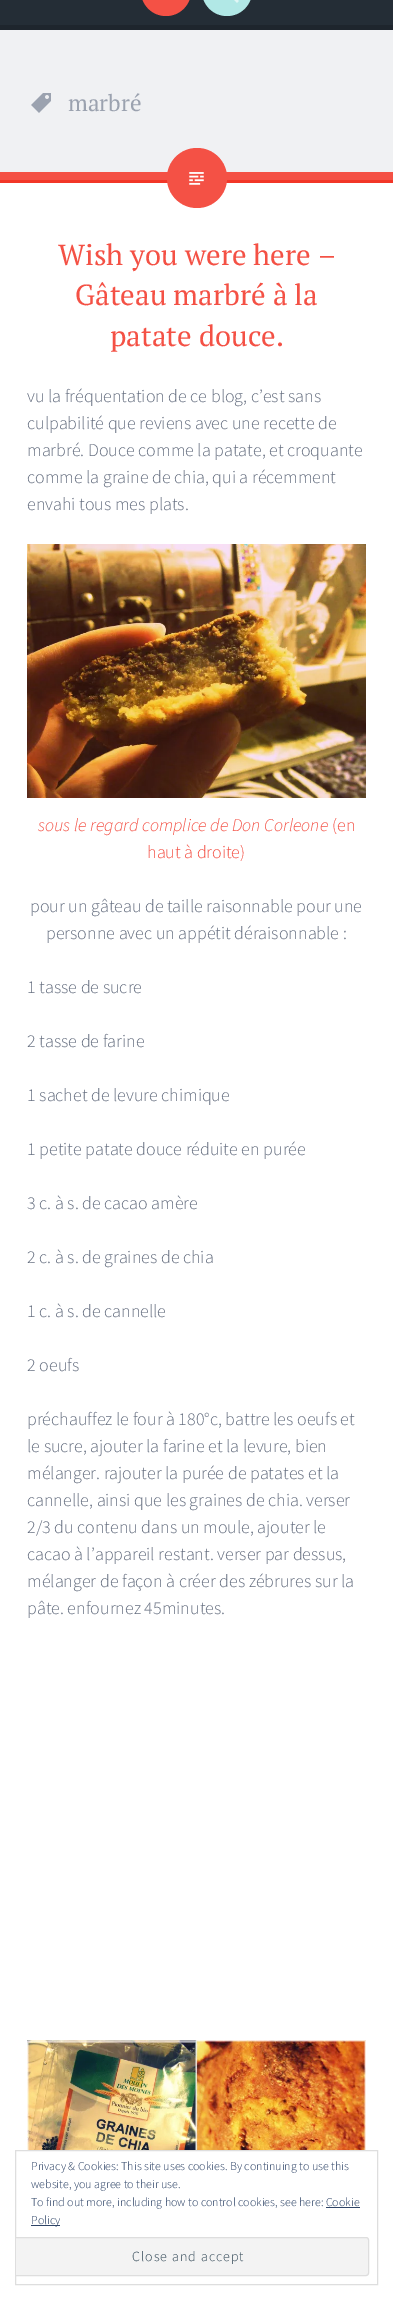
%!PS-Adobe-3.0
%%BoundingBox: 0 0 393 2300
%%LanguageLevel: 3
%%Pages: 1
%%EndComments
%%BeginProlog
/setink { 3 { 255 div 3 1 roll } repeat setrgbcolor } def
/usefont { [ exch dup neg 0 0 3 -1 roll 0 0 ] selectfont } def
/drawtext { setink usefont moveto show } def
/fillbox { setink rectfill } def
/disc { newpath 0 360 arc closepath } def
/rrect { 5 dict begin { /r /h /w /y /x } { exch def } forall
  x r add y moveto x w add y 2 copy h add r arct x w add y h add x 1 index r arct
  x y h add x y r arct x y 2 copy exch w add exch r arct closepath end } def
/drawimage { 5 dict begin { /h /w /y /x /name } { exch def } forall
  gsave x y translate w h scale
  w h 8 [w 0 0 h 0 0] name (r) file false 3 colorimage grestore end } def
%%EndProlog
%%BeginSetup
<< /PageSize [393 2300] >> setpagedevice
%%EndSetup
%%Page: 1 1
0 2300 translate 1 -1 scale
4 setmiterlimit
0 0 393 2300 240 241 243 fillbox
0 0 393 25 36 45 54 fillbox
0 25 393 5 30 37 45 fillbox
244 81 69 setink
141 -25 50 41 25 rrect fill
177 232 230 setink
202 -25 50 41 25 rrect fill
(assets/img1.rgb) 234 0 5 3 drawimage
(assets/img2.rgb) 31 93 20 20 drawimage
(marbré) 68 111 /PTSerif-Regular 23 155 162 175 drawtext
0 183 393 2117 255 255 255 fillbox
0 172 393 8 244 81 69 fillbox
0 180 393 3 242 54 40 fillbox
244 81 69 setink
197 178 30 disc fill
(assets/img3.rgb) 189 172 15 13 drawimage
(Wish you were here –) 58 265 /PTSerif-Regular 29 244 81 69 drawtext
(Gâteau marbré à la) 75 305 /PTSerif-Regular 29 244 81 69 drawtext
(patate douce.) 110 346 /PTSerif-Regular 29 244 81 69 drawtext
(vu la fréquentation de ce blog, c’est sans) 27 402 /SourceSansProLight-Light 18 101 110 127 drawtext
(culpabilité que reviens avec une recette de) 27 429 /SourceSansProLight-Light 18 101 110 127 drawtext
(marbré. Douce comme la patate, et croquante) 27 456 /SourceSansProLight-Light 18 101 110 127 drawtext
(comme la graine de chia, qui a récemment) 27 483 /SourceSansProLight-Light 18 101 110 127 drawtext
(envahi tous mes plats.) 27 510 /SourceSansProLight-Light 18 101 110 127 drawtext
(assets/img4.rgb) 27 544 339 254 drawimage
(sous le regard complice de Don Corleone) 38 831 /SourceSansProLight-LightItalic 18 244 81 69 drawtext
(\(en) 332 831 /SourceSansProLight-Light 18 244 81 69 drawtext
(haut à droite\)) 147 858 /SourceSansProLight-Light 18 244 81 69 drawtext
(pour un gâteau de taille raisonnable pour une) 30 912 /SourceSansProLight-Light 18 101 110 127 drawtext
(personne avec un appétit déraisonnable :) 46 939 /SourceSansProLight-Light 18 101 110 127 drawtext
(1 tasse de sucre) 27 993 /SourceSansProLight-Light 18 101 110 127 drawtext
(2 tasse de farine) 27 1047 /SourceSansProLight-Light 18 101 110 127 drawtext
(1 sachet de levure chimique) 27 1101 /SourceSansProLight-Light 18 101 110 127 drawtext
(1 petite patate douce réduite en purée) 27 1155 /SourceSansProLight-Light 18 101 110 127 drawtext
(3 c. à s. de cacao amère) 27 1209 /SourceSansProLight-Light 18 101 110 127 drawtext
(2 c. à s. de graines de chia) 27 1263 /SourceSansProLight-Light 18 101 110 127 drawtext
(1 c. à s. de cannelle) 27 1317 /SourceSansProLight-Light 18 101 110 127 drawtext
(2 oeufs) 27 1371 /SourceSansProLight-Light 18 101 110 127 drawtext
(préchauffez le four à 180°c, battre les oeufs et) 27 1425 /SourceSansProLight-Light 18 101 110 127 drawtext
(le sucre, ajouter la farine et la levure, bien) 27 1452 /SourceSansProLight-Light 18 101 110 127 drawtext
(mélanger. rajouter la purée de patates et la) 27 1479 /SourceSansProLight-Light 18 101 110 127 drawtext
(cannelle, ainsi que les graines de chia. verser) 27 1506 /SourceSansProLight-Light 18 101 110 127 drawtext
(2/3 du contenu dans un moule, ajouter le) 27 1533 /SourceSansProLight-Light 18 101 110 127 drawtext
(cacao à l’appareil restant. verser par dessus,) 27 1560 /SourceSansProLight-Light 18 101 110 127 drawtext
(mélanger de façon à créer des zébrures sur la) 27 1587 /SourceSansProLight-Light 18 101 110 127 drawtext
(pâte. enfournez 45minutes.) 27 1614 /SourceSansProLight-Light 18 101 110 127 drawtext
(assets/img5.rgb) 27 2040 339 110 drawimage
222 222 222 setink
15.5 2150.5 362 134 rectstroke
(Privacy & Cookies: This site uses cookies. By continuing to use this) 31 2170 /SourceSansProLight-Light 12 46 68 103 drawtext
(website, you agree to their use.) 31 2188 /SourceSansProLight-Light 12 46 68 103 drawtext
(To find out more, including how to control cookies, see here: Cookie) 31 2206 /SourceSansProLight-Light 12 46 68 103 drawtext
31 2225 29 1 46 68 103 fillbox
(Policy) 31 2224 /SourceSansProLight-Light 12 46 68 103 drawtext
326 2207 34 1 46 68 103 fillbox
243 243 243 setink
16 2237 moveto 366 2237 lineto 367.5 2237 369 2238.5 369 2240 curveto 369 2273 lineto 369 2274.5 367.5 2276 366 2276 curveto 16 2276 lineto closepath fill
gsave
16 2151 361 133 rectclip
222 222 222 setink
8.5 2237.5 360 38 2.5 rrect stroke
grestore
/SourceSansProLight-Light 14 usefont
46 68 83 setink
132 2261 moveto 1 0 (Close and accept) ashow
showpage
%%EOF
